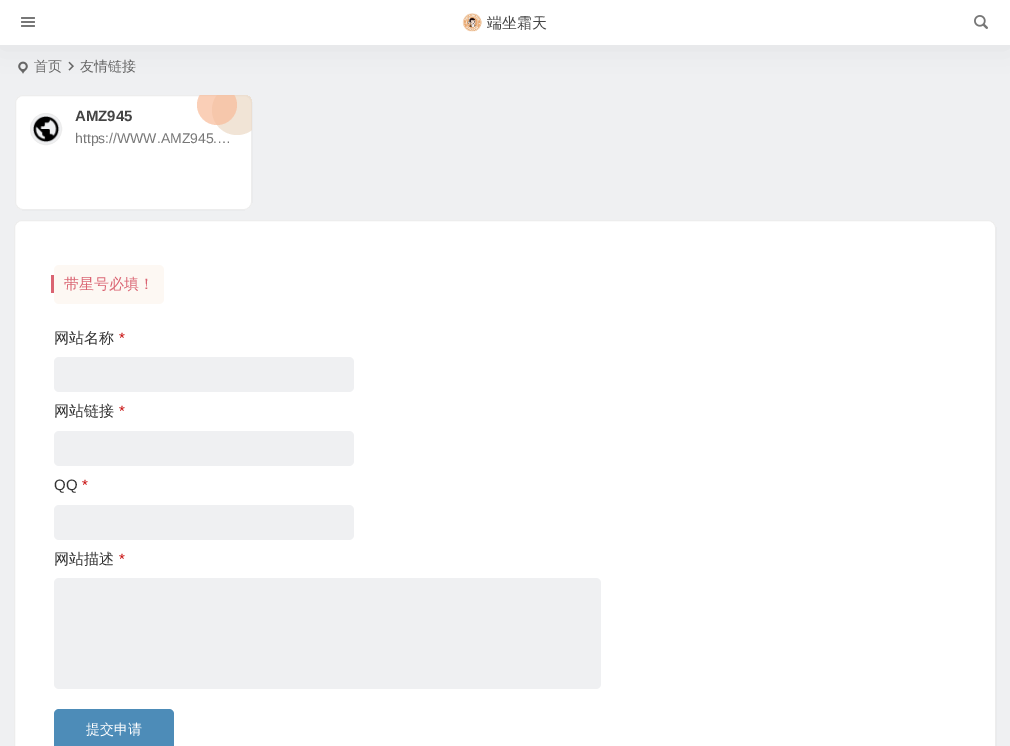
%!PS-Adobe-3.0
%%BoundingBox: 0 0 1010 746
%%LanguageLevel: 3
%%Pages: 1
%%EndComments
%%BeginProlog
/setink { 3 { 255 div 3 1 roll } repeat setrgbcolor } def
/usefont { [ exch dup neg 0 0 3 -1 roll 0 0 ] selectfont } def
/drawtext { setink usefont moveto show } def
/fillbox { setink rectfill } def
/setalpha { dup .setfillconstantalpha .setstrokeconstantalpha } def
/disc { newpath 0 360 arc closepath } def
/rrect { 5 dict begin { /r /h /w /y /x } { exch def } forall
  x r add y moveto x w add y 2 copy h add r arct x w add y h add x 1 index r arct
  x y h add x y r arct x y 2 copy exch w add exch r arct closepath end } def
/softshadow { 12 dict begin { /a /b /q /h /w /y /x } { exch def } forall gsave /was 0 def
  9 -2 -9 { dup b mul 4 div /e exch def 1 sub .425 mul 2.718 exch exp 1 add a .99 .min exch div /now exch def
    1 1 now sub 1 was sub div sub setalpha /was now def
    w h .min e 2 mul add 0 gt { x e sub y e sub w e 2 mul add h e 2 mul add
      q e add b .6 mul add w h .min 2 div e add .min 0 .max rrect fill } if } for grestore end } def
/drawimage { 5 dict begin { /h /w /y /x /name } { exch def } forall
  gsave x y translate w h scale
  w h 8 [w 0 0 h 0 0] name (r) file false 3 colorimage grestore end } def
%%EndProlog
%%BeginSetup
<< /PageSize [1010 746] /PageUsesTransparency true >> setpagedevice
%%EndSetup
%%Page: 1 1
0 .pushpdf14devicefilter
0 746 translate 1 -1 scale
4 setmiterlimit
0 0 1010 746 239 240 242 fillbox
(assets/img3.rgb) 18 61 10 13 drawimage
(assets/img4.rgb) 68 61 6 10 drawimage
255 255 255 setink
15 95 237 115 8 rrect fill
0.07 setalpha
0 0 0 setink
15.5 95.5 236 114 7.5 rrect stroke
1 setalpha
(https://WWW.AMZ945.…) 75 143 /LiberationSans-Regular 14 119 119 119 drawtext
gsave
15 95 237 115 8 rrect clip newpath
0.7 setalpha
235 216 196 setink
237 110 25 disc fill
248 187 153 setink
217 105 20 disc fill
grestore
0 0 0 setink
0 3 1010 45 0 15 0.06 softshadow
0 0 1010 45 255 255 255 fillbox
119 119 119 setink
21 21 14 2 1 rrect fill
21 17 14 2 1 rrect fill
21 25 14 2 1 rrect fill
(assets/img1.rgb) 462 13 20 19 drawimage
(端坐霜天) 487 28 /WenQuanYiZenHei-Medium 15 68 68 68 drawtext
(assets/img2.rgb) 974 15 14 14 drawimage
(首页) 34 71 /WenQuanYiZenHei-Medium 14 102 102 102 drawtext
(友情链接) 80 71 /WenQuanYiZenHei-Medium 14 102 102 102 drawtext
239 240 242 setink
46 129 15.5 disc gsave fill grestore
236 236 236 setink
stroke
(assets/img5.rgb) 33 116 27 27 drawimage
(AMZ945) 75 121 /LiberationSans-Bold 15 68 68 68 drawtext
255 255 255 setink
14 220 982 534 8 rrect fill
0.07 setalpha
0 0 0 setink
14.5 220.5 981 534 7.5 rrect stroke
1 setalpha
253 248 243 setink
54 265 110 39 5 rrect fill
51 275 3 18 218 100 114 fillbox
(带星号必填！) 64 289 /WenQuanYiZenHei-Medium 15 218 100 114 drawtext
(网站名称) 54 343 /WenQuanYiZenHei-Medium 15 51 51 51 drawtext
(*) 119 343 /LiberationSans-Regular 15 196 0 0 drawtext
239 240 242 setink
54 357 300 35 5 rrect fill
(网站链接) 54 416 /WenQuanYiZenHei-Medium 15 51 51 51 drawtext
(*) 119 416 /LiberationSans-Regular 15 196 0 0 drawtext
239 240 242 setink
54 431 300 35 5 rrect fill
(QQ) 54 490 /LiberationSans-Regular 15 51 51 51 drawtext
(*) 82 490 /LiberationSans-Regular 15 196 0 0 drawtext
239 240 242 setink
54 505 300 35 5 rrect fill
(网站描述) 54 564 /WenQuanYiZenHei-Medium 15 51 51 51 drawtext
(*) 119 564 /LiberationSans-Regular 15 196 0 0 drawtext
239 240 242 setink
54 578 547 111 5 rrect fill
77 140 184 setink
54 709 120 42 5 rrect fill
(提交申请) 86 734 /WenQuanYiZenHei-Medium 14 255 255 255 drawtext
.poppdf14devicefilter showpage
%%EOF
